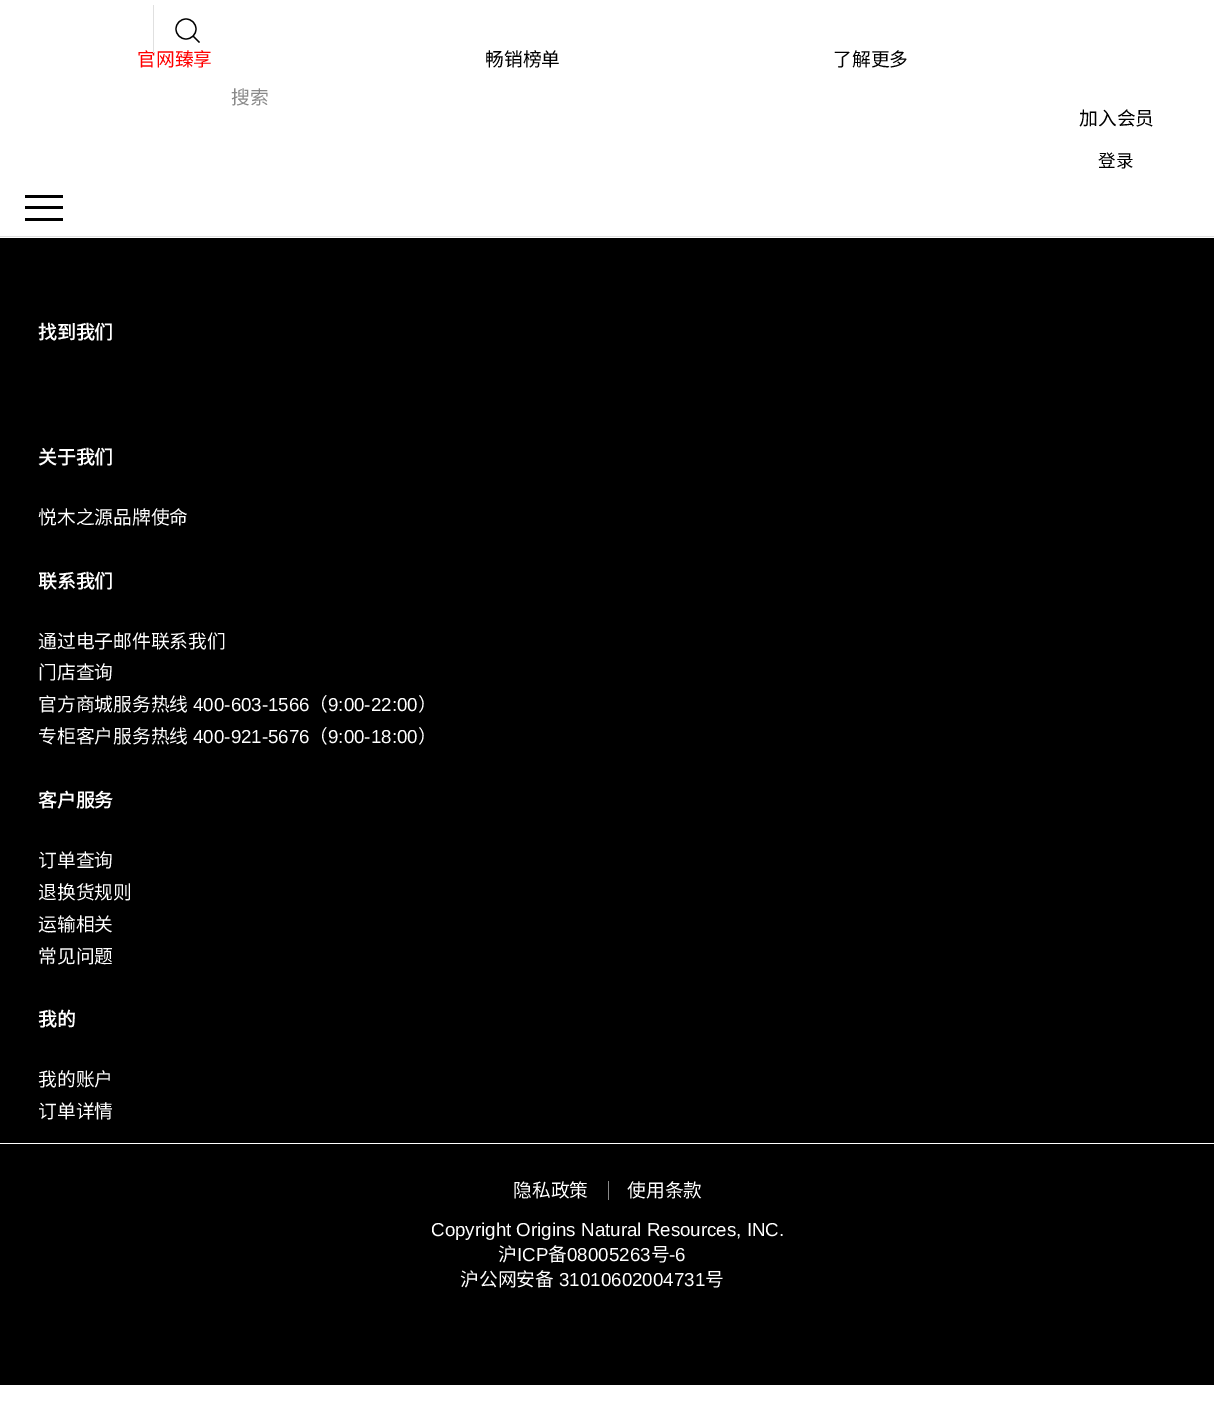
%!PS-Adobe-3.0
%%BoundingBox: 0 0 1214 1406
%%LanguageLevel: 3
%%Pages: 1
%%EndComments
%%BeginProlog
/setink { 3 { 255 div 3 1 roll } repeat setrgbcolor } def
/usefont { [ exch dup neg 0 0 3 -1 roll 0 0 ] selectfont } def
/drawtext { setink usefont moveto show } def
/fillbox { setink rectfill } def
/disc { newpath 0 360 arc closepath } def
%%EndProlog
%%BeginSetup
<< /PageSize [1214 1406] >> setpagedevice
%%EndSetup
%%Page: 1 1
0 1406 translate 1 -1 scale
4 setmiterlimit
0 0 1214 1406 255 255 255 fillbox
0 236 1214 1 224 224 224 fillbox
(官网臻享) 137 66 /NotoSansCJKSC-Regular 18.75 255 0 0 drawtext
(畅销榜单) 485 66 /NotoSansCJKSC-Regular 18.75 0 0 0 drawtext
(了解更多) 833 66 /NotoSansCJKSC-Regular 18.75 0 0 0 drawtext
(加入会员) 1079 125 /NotoSansCJKSC-Regular 18.75 0 0 0 drawtext
(登录) 1098 167 /NotoSansCJKSC-Regular 17.5 0 0 0 drawtext
153 5 1 48 224 224 224 fillbox
0 0 0 setink
1.2 setlinewidth
186 29 10 disc stroke
193 36 moveto 199.5 42.5 lineto stroke
(搜索) 231 104 /NotoSansCJKSC-Regular 18.75 137 137 137 drawtext
25 195 38 3 0 0 0 fillbox
25 206 38 3 0 0 0 fillbox
25 218 38 3 0 0 0 fillbox
0 238 1214 905 0 0 0 fillbox
(找到我们) 38 339 /NotoSansCJKSC-Bold 18.75 255 255 255 drawtext
(关于我们) 38 464 /NotoSansCJKSC-Bold 18.75 255 255 255 drawtext
(悦木之源品牌使命) 38 524 /NotoSansCJKSC-Regular 18.75 255 255 255 drawtext
(联系我们) 38 588 /NotoSansCJKSC-Bold 18.75 255 255 255 drawtext
(通过电子邮件联系我们) 38 648 /NotoSansCJKSC-Regular 18.75 255 255 255 drawtext
(门店查询) 38 679 /NotoSansCJKSC-Regular 18.75 255 255 255 drawtext
(官方商城服务热线) 38 711 /NotoSansCJKSC-Regular 18.75 255 255 255 drawtext
(400-603-1566) 193 711 /LiberationSans-Regular 18.75 255 255 255 drawtext
(（) 309 711 /NotoSansCJKSC-Regular 18.75 255 255 255 drawtext
(9:00-22:00) 328 711 /LiberationSans-Regular 18.75 255 255 255 drawtext
(）) 418 711 /NotoSansCJKSC-Regular 18.75 255 255 255 drawtext
(专柜客户服务热线) 38 743 /NotoSansCJKSC-Regular 18.75 255 255 255 drawtext
(400-921-5676) 193 743 /LiberationSans-Regular 18.75 255 255 255 drawtext
(（) 309 743 /NotoSansCJKSC-Regular 18.75 255 255 255 drawtext
(9:00-18:00) 328 743 /LiberationSans-Regular 18.75 255 255 255 drawtext
(）) 418 743 /NotoSansCJKSC-Regular 18.75 255 255 255 drawtext
(客户服务) 38 807 /NotoSansCJKSC-Bold 18.75 255 255 255 drawtext
(订单查询) 38 867 /NotoSansCJKSC-Regular 18.75 255 255 255 drawtext
(退换货规则) 38 899 /NotoSansCJKSC-Regular 18.75 255 255 255 drawtext
(运输相关) 38 931 /NotoSansCJKSC-Regular 18.75 255 255 255 drawtext
(常见问题) 38 963 /NotoSansCJKSC-Regular 18.75 255 255 255 drawtext
(我的) 38 1026 /NotoSansCJKSC-Bold 18.75 255 255 255 drawtext
(我的账户) 38 1086 /NotoSansCJKSC-Regular 18.75 255 255 255 drawtext
(订单详情) 38 1118 /NotoSansCJKSC-Regular 18.75 255 255 255 drawtext
0 1144 1214 241 0 0 0 fillbox
608 1181 1 19 137 137 137 fillbox
(隐私政策) 513 1197 /NotoSansCJKSC-Regular 18.75 255 255 255 drawtext
(使用条款) 627 1197 /NotoSansCJKSC-Regular 18.75 255 255 255 drawtext
(Copyright Origins Natural Resources, INC.) 431 1236 /LiberationSans-Regular 18.75 255 255 255 drawtext
(沪) 498 1261 /NotoSansCJKSC-Regular 18.75 255 255 255 drawtext
(ICP) 517 1261 /LiberationSans-Regular 18.75 255 255 255 drawtext
(备) 548 1261 /NotoSansCJKSC-Regular 18.75 255 255 255 drawtext
(08005263) 567 1261 /LiberationSans-Regular 18.75 255 255 255 drawtext
(号) 651 1261 /NotoSansCJKSC-Regular 18.75 255 255 255 drawtext
(-6) 669 1261 /LiberationSans-Regular 18.75 255 255 255 drawtext
(沪公网安备) 460 1286 /NotoSansCJKSC-Regular 18.75 255 255 255 drawtext
(31010602004731) 559 1286 /LiberationSans-Regular 18.75 255 255 255 drawtext
(号) 705 1286 /NotoSansCJKSC-Regular 18.75 255 255 255 drawtext
showpage
%%EOF
